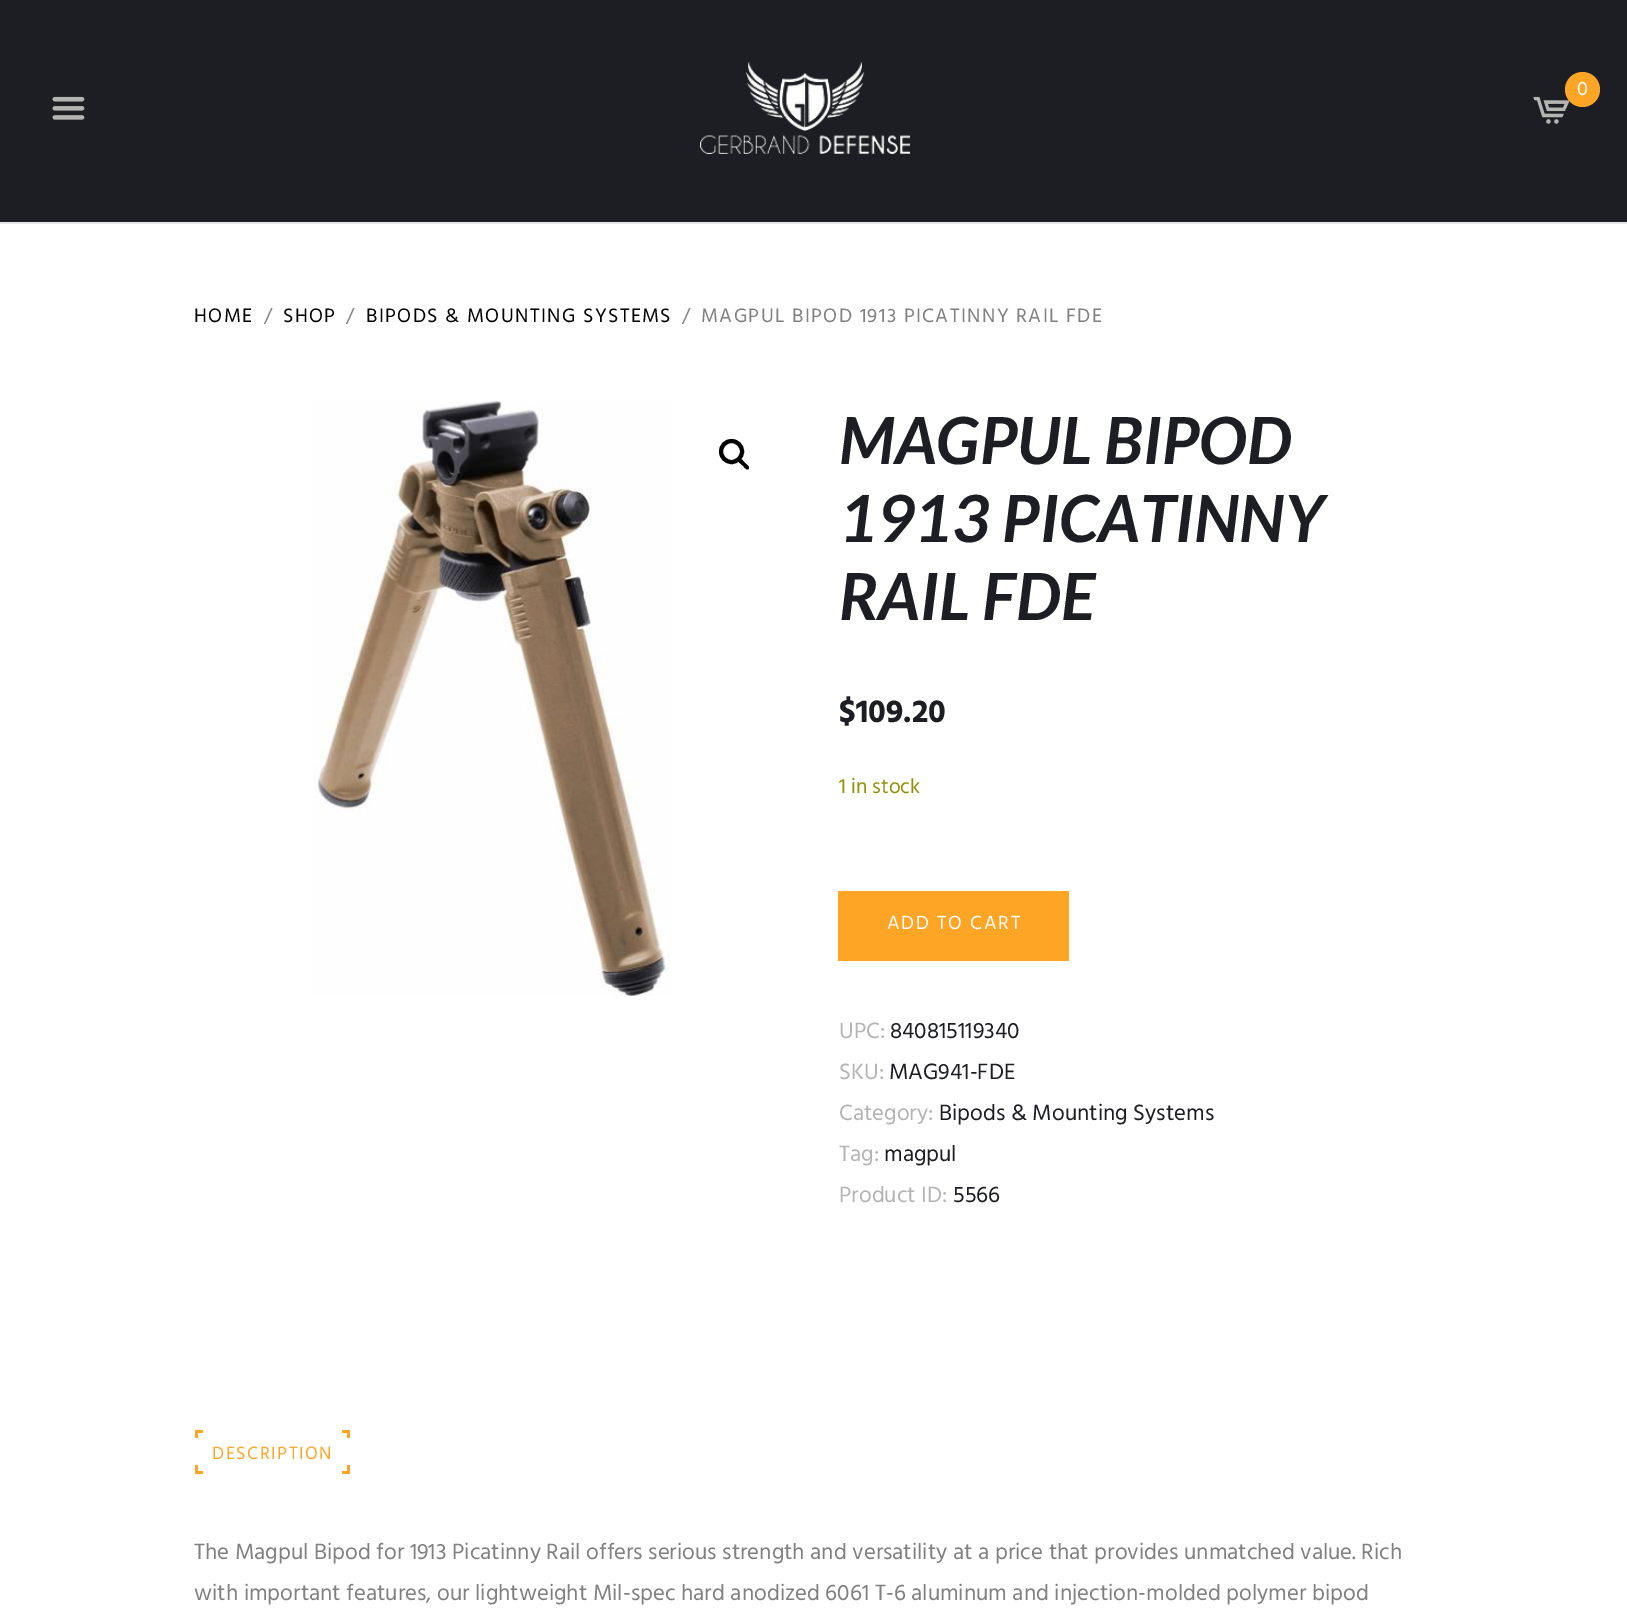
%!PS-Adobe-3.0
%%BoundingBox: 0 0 1627 1615
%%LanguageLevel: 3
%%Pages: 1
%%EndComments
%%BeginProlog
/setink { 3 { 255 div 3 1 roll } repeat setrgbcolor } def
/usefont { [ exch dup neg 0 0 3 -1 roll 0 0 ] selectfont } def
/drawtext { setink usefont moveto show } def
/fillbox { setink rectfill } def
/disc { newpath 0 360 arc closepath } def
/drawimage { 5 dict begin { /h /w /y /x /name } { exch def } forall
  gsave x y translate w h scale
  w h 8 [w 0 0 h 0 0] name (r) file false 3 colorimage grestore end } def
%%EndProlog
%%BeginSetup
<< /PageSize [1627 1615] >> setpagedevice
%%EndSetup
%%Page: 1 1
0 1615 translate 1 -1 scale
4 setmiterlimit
0 0 1627 1615 255 255 255 fillbox
0 0 1627 222 29 30 35 fillbox
(assets/img1.rgb) 700 61 210 93 drawimage
(assets/img2.rgb) 1533 96 37 28 drawimage
254 165 38 setink
1582.5 89.5 17.5 disc fill
(0) 1577 95 /Hind-Regular 20 255 255 255 drawtext
(assets/img3.rgb) 52 96 33 24 drawimage
0 222 1627 2 231 231 232 fillbox
/Hind-Regular 19.9 usefont
0 0 0 setink
194 322 moveto 1.4 0 (HOME) ashow
128 128 128 setink
264 322 moveto 1.4 0 (/) ashow
0 0 0 setink
283 322 moveto 1.4 0 (SHOP) ashow
128 128 128 setink
346 322 moveto 1.4 0 (/) ashow
0 0 0 setink
366 322 moveto 1.4 0 (BIPODS & MOUNTING SYSTEMS) ashow
128 128 128 setink
682 322 moveto 1.4 0 (/) ashow
701 322 moveto 1.4 0 (MAGPUL BIPOD 1913 PICATINNY RAIL FDE) ashow
(assets/img4.rgb) 313 400 357 596 drawimage
0 0 0 setink
4 setlinewidth
731.5 451.5 10.5 disc stroke
738.5 459 moveto 740.5 457 743.5 461.5 744.5 462.5 curveto 746 464 750.5 467 748.5 469 curveto 746.5 471 743.5 466 742 465 curveto 741 464 736.5 461 738.5 459 curveto closepath fill
(MAGPUL BIPOD) 839 464 /Lato-BoldItalic 65 29 30 35 drawtext
(1913 PICATINNY) 839 542 /Lato-BoldItalic 65 29 30 35 drawtext
(RAIL FDE) 839 620 /Lato-BoldItalic 65 29 30 35 drawtext
($109.20) 839 722 /Hind-Bold 32.5 29 30 35 drawtext
(1 in stock) 839 793 /Hind-Regular 21 149 142 9 drawtext
838 891 231 70 254 165 38 fillbox
/Hind-Regular 19.5 usefont
255 255 255 setink
887 929 moveto 1.75 0 (ADD TO CART) ashow
(UPC:) 839 1038 /Hind-Regular 22.75 180 180 180 drawtext
(840815119340) 890 1038 /Hind-Regular 22.75 29 30 35 drawtext
(SKU:) 839 1079 /Hind-Regular 22.75 180 180 180 drawtext
(MAG941-FDE) 889 1079 /Hind-Regular 22.75 29 30 35 drawtext
(Category:) 839 1120 /Hind-Regular 22.75 180 180 180 drawtext
(Bipods & Mounting Systems) 939 1120 /Hind-Regular 22.75 29 30 35 drawtext
(Tag:) 839 1161 /Hind-Regular 22.75 180 180 180 drawtext
(magpul) 884 1161 /Hind-Regular 22.75 29 30 35 drawtext
(Product ID:) 839 1202 /Hind-Regular 22.75 180 180 180 drawtext
(5566) 953 1202 /Hind-Regular 22.75 29 30 35 drawtext
254 165 38 setink
195 1434 moveto 195 1438 lineto 198 1438 lineto 198 1433 lineto 203 1433 lineto 203 1430 lineto 195 1430 lineto closepath 195 1470 moveto 195 1474 lineto 203 1474 lineto 203 1471 lineto 198 1471 lineto 198 1465 lineto 195 1465 lineto closepath fill
/Hind-Regular 18.25 usefont
212 1459 moveto 1.5 0 (DESCRIPTION) ashow
342 1431 moveto 342 1433 lineto 347 1433 lineto 347 1438 lineto 350 1438 lineto 350 1430 lineto 342 1430 lineto closepath 347 1468 moveto 347 1471 lineto 342 1471 lineto 342 1474 lineto 350 1474 lineto 350 1465 lineto 347 1465 lineto closepath fill
(The Magpul Bipod for 1913 Picatinny Rail offers serious strength and versatility at a price that provides unmatched value. Rich) 194 1559 /Hind-Regular 22.75 128 128 128 drawtext
(with important features, our lightweight Mil-spec hard anodized 6061 T-6 aluminum and injection-molded polymer bipod) 194 1600 /Hind-Regular 22.75 128 128 128 drawtext
showpage
%%EOF
